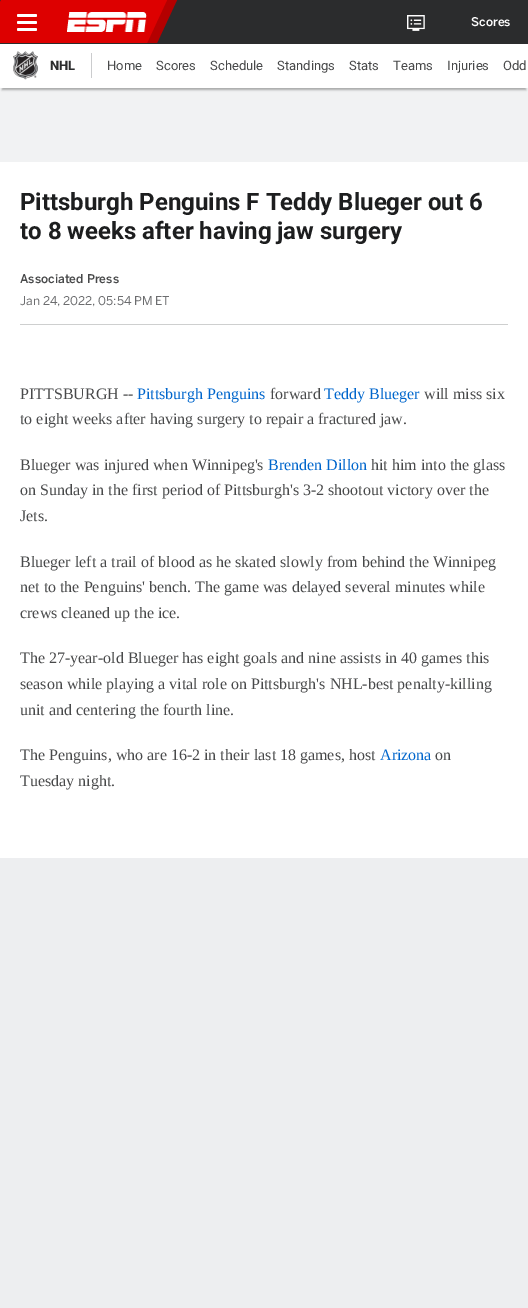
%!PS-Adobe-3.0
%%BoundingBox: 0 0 528 1308
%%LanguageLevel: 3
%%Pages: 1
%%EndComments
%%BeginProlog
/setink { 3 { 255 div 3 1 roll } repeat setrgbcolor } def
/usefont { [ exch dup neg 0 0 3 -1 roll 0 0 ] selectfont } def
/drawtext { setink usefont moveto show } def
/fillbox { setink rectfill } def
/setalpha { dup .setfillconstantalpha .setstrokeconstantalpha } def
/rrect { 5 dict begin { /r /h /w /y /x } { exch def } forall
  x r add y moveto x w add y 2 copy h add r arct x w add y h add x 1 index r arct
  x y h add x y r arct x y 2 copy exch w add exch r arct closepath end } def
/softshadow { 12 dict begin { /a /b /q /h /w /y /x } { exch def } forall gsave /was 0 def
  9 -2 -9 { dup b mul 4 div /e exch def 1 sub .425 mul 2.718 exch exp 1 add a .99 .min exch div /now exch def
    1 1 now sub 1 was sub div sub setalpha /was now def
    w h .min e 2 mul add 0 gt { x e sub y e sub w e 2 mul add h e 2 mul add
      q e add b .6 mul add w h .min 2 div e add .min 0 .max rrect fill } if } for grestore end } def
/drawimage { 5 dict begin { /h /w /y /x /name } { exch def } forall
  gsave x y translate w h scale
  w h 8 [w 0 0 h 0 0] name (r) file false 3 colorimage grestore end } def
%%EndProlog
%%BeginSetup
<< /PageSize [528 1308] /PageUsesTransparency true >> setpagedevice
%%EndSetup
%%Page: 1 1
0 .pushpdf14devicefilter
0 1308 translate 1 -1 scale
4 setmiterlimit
0 0 528 1308 237 238 240 fillbox
0 0 528 44 43 44 45 fillbox
180 0 0 setink
54 0 moveto 177 0 lineto 157 43 lineto 34 43 lineto closepath fill
221 0 0 setink
1 0 moveto 167 0 lineto 147 43 lineto -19 43 lineto closepath fill
(assets/img1.rgb) 67 12 80 20 drawimage
255 255 255 setink
17 21 20 3 1.5 rrect fill
17 14 20 3 1.5 rrect fill
17 28 20 3 1.5 rrect fill
(assets/img2.rgb) 407 15 18 16 drawimage
(Scores) 471 26 /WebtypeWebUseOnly-Medium 12 255 255 255 drawtext
0 88 528 74 241 242 243 fillbox
0 0 0 setink
2 50 524 40 0 1 0.3 softshadow
255 255 255 setink
0 44 528 44 1 rrect fill
(assets/img3.rgb) 13 51 25 29 drawimage
(NHL) 50 70 /Roboto-ExtraBold 13 43 44 45 drawtext
91 53 1 25 203 204 206 fillbox
(Home) 107 70 /Roboto-Regular 13 72 73 74 drawtext
(Scores) 156 70 /Roboto-Regular 13 72 73 74 drawtext
(Schedule) 210 70 /Roboto-Regular 13 72 73 74 drawtext
(Standings) 277 70 /Roboto-Regular 13 72 73 74 drawtext
(Stats) 349 70 /Roboto-Regular 13 72 73 74 drawtext
(Teams) 393 70 /Roboto-Regular 13 72 73 74 drawtext
(Injuries) 447 70 /Roboto-Regular 13 72 73 74 drawtext
(Odd) 503 70 /Roboto-Regular 13 72 73 74 drawtext
0 162 528 696 255 255 255 fillbox
(Pittsburgh Penguins F Teddy Blueger out 6) 20 210 /Roboto-Bold 24 29 30 31 drawtext
(to 8 weeks after having jaw surgery) 20 239 /Roboto-Bold 24 29 30 31 drawtext
20 324 488 1 206 207 207 fillbox
(Associated Press) 20 283 /WebtypeWebUseOnly-Medium 12 72 73 74 drawtext
(Jan 24, 2022, 05:54 PM ET) 20 305 /WebtypeWebUseOnly-Regular 12 108 109 111 drawtext
(PITTSBURGH --) 20 399 /LiberationSerif-Regular 16 72 73 74 drawtext
(Pittsburgh Penguins) 137 399 /LiberationSerif-Regular 16 0 102 204 drawtext
(forward) 270 399 /LiberationSerif-Regular 16 72 73 74 drawtext
(Teddy Blueger) 324 399 /LiberationSerif-Regular 16 0 102 204 drawtext
(will miss six) 424 399 /LiberationSerif-Regular 16 72 73 74 drawtext
(to eight weeks after having surgery to repair a fractured jaw.) 20 424 /LiberationSerif-Regular 16 72 73 74 drawtext
(Blueger was injured when Winnipeg's) 20 470 /LiberationSerif-Regular 16 72 73 74 drawtext
(Brenden Dillon) 268 470 /LiberationSerif-Regular 16 0 102 204 drawtext
(hit him into the glass) 371 470 /LiberationSerif-Regular 16 72 73 74 drawtext
(on Sunday in the first period of Pittsburgh's 3-2 shootout victory over the) 20 495 /LiberationSerif-Regular 16 72 73 74 drawtext
(Jets.) 20 521 /LiberationSerif-Regular 16 72 73 74 drawtext
(Blueger left a trail of blood as he skated slowly from behind the Winnipeg) 20 567 /LiberationSerif-Regular 16 72 73 74 drawtext
(net to the Penguins' bench. The game was delayed several minutes while) 20 592 /LiberationSerif-Regular 16 72 73 74 drawtext
(crews cleaned up the ice.) 20 618 /LiberationSerif-Regular 16 72 73 74 drawtext
(The 27-year-old Blueger has eight goals and nine assists in 40 games this) 20 663 /LiberationSerif-Regular 16 72 73 74 drawtext
(season while playing a vital role on Pittsburgh's NHL-best penalty-killing) 20 689 /LiberationSerif-Regular 16 72 73 74 drawtext
(unit and centering the fourth line.) 20 715 /LiberationSerif-Regular 16 72 73 74 drawtext
(The Penguins, who are 16-2 in their last 18 games, host) 20 760 /LiberationSerif-Regular 16 72 73 74 drawtext
(Arizona) 380 760 /LiberationSerif-Regular 16 0 102 204 drawtext
(on) 435 760 /LiberationSerif-Regular 16 72 73 74 drawtext
(Tuesday night.) 20 786 /LiberationSerif-Regular 16 72 73 74 drawtext
.poppdf14devicefilter showpage
%%EOF
